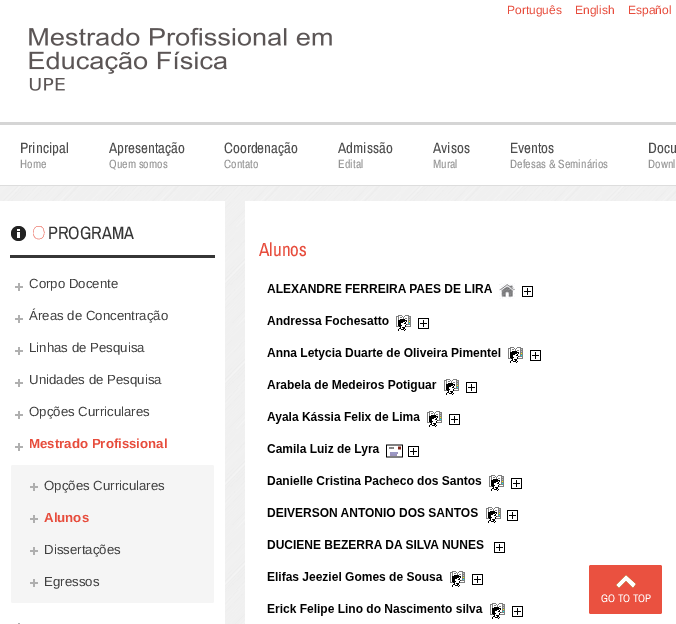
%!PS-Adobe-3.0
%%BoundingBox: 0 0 676 624
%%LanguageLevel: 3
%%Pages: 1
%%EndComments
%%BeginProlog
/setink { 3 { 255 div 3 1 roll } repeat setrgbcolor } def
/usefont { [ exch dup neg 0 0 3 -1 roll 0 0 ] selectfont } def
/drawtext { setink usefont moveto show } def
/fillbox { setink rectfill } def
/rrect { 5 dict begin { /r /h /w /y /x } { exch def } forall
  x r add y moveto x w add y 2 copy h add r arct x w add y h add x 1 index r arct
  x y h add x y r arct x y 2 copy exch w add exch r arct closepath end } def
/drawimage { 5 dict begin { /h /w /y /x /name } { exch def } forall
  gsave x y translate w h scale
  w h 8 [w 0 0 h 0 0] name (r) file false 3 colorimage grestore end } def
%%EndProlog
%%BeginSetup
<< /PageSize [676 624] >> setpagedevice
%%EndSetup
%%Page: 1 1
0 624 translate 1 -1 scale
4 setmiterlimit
0 0 676 624 255 255 255 fillbox
(Português) 507 14 /LiberationSans-Regular 12 231 76 60 drawtext
(English) 575 14 /LiberationSans-Regular 12 231 76 60 drawtext
(Español) 628 14 /LiberationSans-Regular 12 231 76 60 drawtext
(assets/img1.rgb) 29 27 303 64 drawimage
0 122 676 3 213 213 213 fillbox
0 185 676 1 221 221 221 fillbox
(Principal) 20 153 /ArchivoNarrow-Regular 15 77 77 77 drawtext
(Home) 20 168 /ArchivoNarrow-Regular 12 148 148 148 drawtext
(Apresentação) 109 153 /ArchivoNarrow-Regular 15 77 77 77 drawtext
(Quem somos) 109 168 /ArchivoNarrow-Regular 12 148 148 148 drawtext
(Coordenação) 224 153 /ArchivoNarrow-Regular 15 77 77 77 drawtext
(Contato) 224 168 /ArchivoNarrow-Regular 12 148 148 148 drawtext
(Admissão) 338 153 /ArchivoNarrow-Regular 15 77 77 77 drawtext
(Edital) 338 168 /ArchivoNarrow-Regular 12 148 148 148 drawtext
(Avisos) 433 153 /ArchivoNarrow-Regular 15 77 77 77 drawtext
(Mural) 433 168 /ArchivoNarrow-Regular 12 148 148 148 drawtext
(Eventos) 510 153 /ArchivoNarrow-Regular 15 77 77 77 drawtext
(Defesas & Seminários) 510 168 /ArchivoNarrow-Regular 12 148 148 148 drawtext
(Docu) 648 153 /ArchivoNarrow-Regular 15 77 77 77 drawtext
(Downl) 648 168 /ArchivoNarrow-Regular 12 148 148 148 drawtext
(assets/img2.rgb) 0 186 676 438 drawimage
0 201 225 423 255 255 255 fillbox
10 255 205 3 54 54 54 fillbox
(assets/img3.rgb) 11 226 15 15 drawimage
(O) 32 239 /NotoSans-Thin 18 231 76 60 drawtext
(PROGRAMA) 48 239 /ArchivoNarrow-Regular 18 54 54 54 drawtext
(assets/img4.rgb) 15 283 8 8 drawimage
(Corpo Docente) 29 288 /LiberationSans-Regular 13.25 64 64 64 drawtext
(assets/img4.rgb) 15 315 8 8 drawimage
(Áreas de Concentração) 29 320 /LiberationSans-Regular 13.25 64 64 64 drawtext
(assets/img4.rgb) 15 347 8 8 drawimage
(Linhas de Pesquisa) 29 352 /LiberationSans-Regular 13.25 64 64 64 drawtext
(assets/img4.rgb) 15 379 8 8 drawimage
(Unidades de Pesquisa) 29 384 /LiberationSans-Regular 13.25 64 64 64 drawtext
(assets/img4.rgb) 15 411 8 8 drawimage
(Opções Curriculares) 29 416 /LiberationSans-Regular 13.25 64 64 64 drawtext
(assets/img4.rgb) 15 443 8 8 drawimage
(Mestrado Profissional) 29 448 /LiberationSans-Bold 13.25 231 76 60 drawtext
245 245 245 setink
11 465 203 138 2 rrect fill
(assets/img5.rgb) 30 483 8 8 drawimage
(Opções Curriculares) 44 490 /LiberationSans-Regular 13.25 64 64 64 drawtext
(assets/img5.rgb) 30 515 8 8 drawimage
(Alunos) 44 522 /LiberationSans-Bold 13.25 231 76 60 drawtext
(assets/img5.rgb) 30 547 8 8 drawimage
(Dissertações) 44 554 /LiberationSans-Regular 13.25 64 64 64 drawtext
(assets/img5.rgb) 30 579 8 8 drawimage
(Egressos) 44 586 /LiberationSans-Regular 13.25 64 64 64 drawtext
18 623 2 1 176 176 176 fillbox
245 201 431 423 255 255 255 fillbox
(Alunos) 259 256 /ArchivoNarrow-Regular 19 231 76 60 drawtext
(assets/img6.rgb) 267 283 274 336 drawimage
234 81 64 setink
589 565 73 49 2 rrect fill
(assets/img7.rgb) 616 575 20 13 drawimage
(GO TO TOP) 601 602 /ArchivoNarrow-Regular 11 255 255 255 drawtext
showpage
%%EOF
